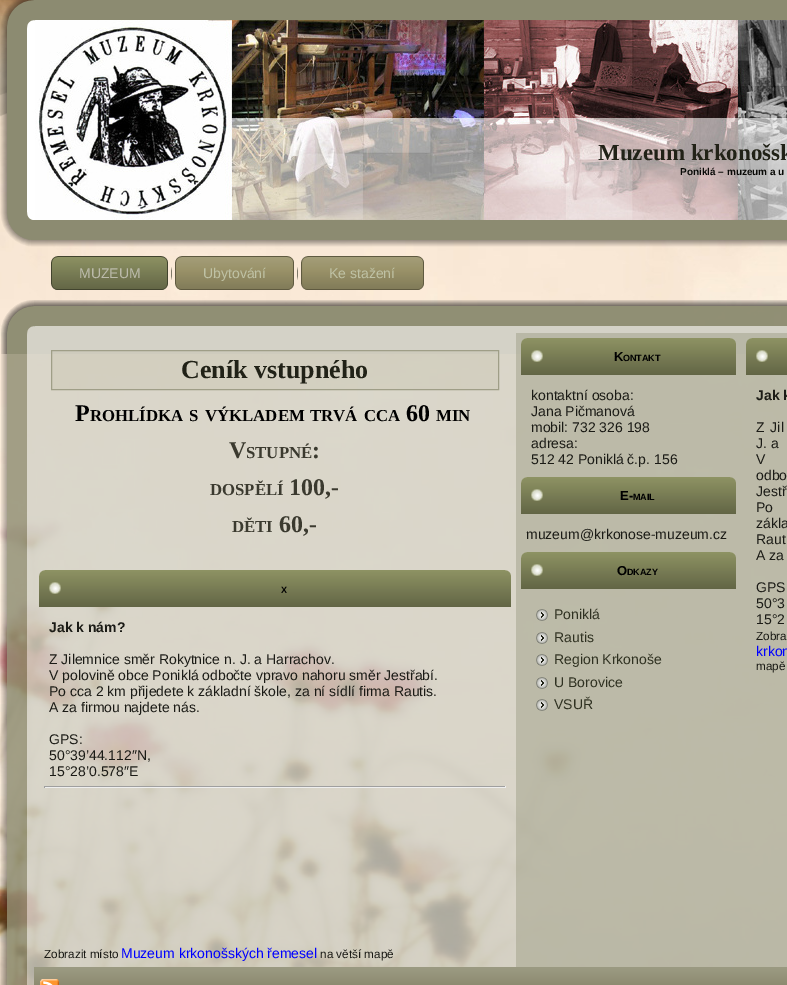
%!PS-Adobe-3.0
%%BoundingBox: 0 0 787 985
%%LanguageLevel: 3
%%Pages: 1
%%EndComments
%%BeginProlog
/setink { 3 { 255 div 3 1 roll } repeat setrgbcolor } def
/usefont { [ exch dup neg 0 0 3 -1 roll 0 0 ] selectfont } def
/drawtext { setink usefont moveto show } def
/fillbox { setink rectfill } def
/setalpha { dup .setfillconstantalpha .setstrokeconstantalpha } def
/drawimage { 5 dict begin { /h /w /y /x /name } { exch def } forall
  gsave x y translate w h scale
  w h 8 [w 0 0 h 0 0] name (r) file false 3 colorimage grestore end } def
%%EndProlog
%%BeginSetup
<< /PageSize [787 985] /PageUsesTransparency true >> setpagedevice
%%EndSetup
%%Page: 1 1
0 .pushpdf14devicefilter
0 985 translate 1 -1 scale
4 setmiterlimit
0 0 787 985 255 255 255 fillbox
(assets/img1.rgb) 0 73 787 912 drawimage
(assets/img2.rgb) 0 0 34 73 drawimage
(assets/img3.rgb) 0 0 34 117 drawimage
(assets/img4.rgb) 0 0 787 247 drawimage
(assets/img5.rgb) 41 20 746 200 drawimage
(Muzeum krkonošsk) 598 160 /LiberationSerif-Bold 23 33 34 23 drawtext
(Poniklá – muzeum a u) 680 175 /LiberationSans-Bold 10 9 10 7 drawtext
(assets/img6.rgb) 51 256 110 34 drawimage
(assets/img7.rgb) 161 256 7 34 drawimage
(MUZEUM) 79 278 /LiberationSans-Regular 14 188 187 171 drawtext
(assets/img8.rgb) 171 267 1 13 drawimage
(assets/img9.rgb) 175 256 112 34 drawimage
(assets/img10.rgb) 287 256 7 34 drawimage
(Ubytování) 203 278 /LiberationSans-Regular 14 191 194 165 drawtext
(assets/img11.rgb) 297 267 1 13 drawimage
(assets/img12.rgb) 301 256 116 34 drawimage
(assets/img13.rgb) 417 256 7 34 drawimage
(Ke stažení) 329 278 /LiberationSans-Regular 14 191 194 165 drawtext
(assets/img14.rgb) 1 300 786 54 drawimage
(assets/img15.rgb) 1 300 786 54 drawimage
(assets/img29.rgb) 1 354 786 631 drawimage
0.1 setalpha
153 143 102 setink
51.5 350.5 moveto 498.5 350.5 lineto 498.5 389.5 lineto 51.5 389.5 lineto closepath fill
1 setalpha
159 158 135 setink
51.5 350.5 moveto 498.5 350.5 lineto 498.5 389.5 lineto 51.5 389.5 lineto closepath stroke
(Ceník vstupného) 181 378 /LiberationSerif-Bold 26 33 34 23 drawtext
(P) 75 421 /LiberationSerif-Bold 24 0 0 0 drawtext
(ROHLÍDKA) 90 421 /LiberationSerif-Bold 16.75 0 0 0 drawtext
(S) 189 421 /LiberationSerif-Bold 16.75 0 0 0 drawtext
(VÝKLADEM) 205 421 /LiberationSerif-Bold 16.75 0 0 0 drawtext
(TRVÁ) 310 421 /LiberationSerif-Bold 16.75 0 0 0 drawtext
(CCA) 364 421 /LiberationSerif-Bold 16.75 0 0 0 drawtext
(60) 406 421 /LiberationSerif-Bold 24 0 0 0 drawtext
(MIN) 436 421 /LiberationSerif-Bold 16.75 0 0 0 drawtext
(V) 229 458 /LiberationSerif-Bold 24 59 58 47 drawtext
(STUPNÉ) 246 458 /LiberationSerif-Bold 16.75 59 58 47 drawtext
(:) 312 458 /LiberationSerif-Bold 24 59 58 47 drawtext
(DOSPĚLÍ) 210 495 /LiberationSerif-Bold 16.75 59 58 47 drawtext
(100,-) 289 495 /LiberationSerif-Bold 24 59 58 47 drawtext
(DĚTI) 232 532 /LiberationSerif-Bold 16.75 59 58 47 drawtext
(60,-) 279 532 /LiberationSerif-Bold 24 59 58 47 drawtext
(assets/img16.rgb) 39 570 450 37 drawimage
(assets/img17.rgb) 489 570 22 37 drawimage
(X) 281 593 /LiberationSans-Bold 9 0 0 0 drawtext
(Jak k nám?) 49 632 /LiberationSans-Bold 14 27 27 22 drawtext
(Z Jilemnice směr Rokytnice n. J. a Harrachov.) 49 664 /LiberationSans-Regular 14 27 27 22 drawtext
(V polovině obce Poniklá odbočte vpravo nahoru směr Jestřabí.) 49 680 /LiberationSans-Regular 14 27 27 22 drawtext
(Po cca 2 km přijedete k základní škole, za ní sídlí firma Rautis.) 49 696 /LiberationSans-Regular 14 27 27 22 drawtext
(A za firmou najdete nás.) 49 712 /LiberationSans-Regular 14 27 27 22 drawtext
(GPS:) 49 744 /LiberationSans-Regular 14 27 27 22 drawtext
(50°39’44.112″N,) 49 760 /LiberationSans-Regular 14 27 27 22 drawtext
(15°28’0.578″E) 49 776 /LiberationSans-Regular 14 27 27 22 drawtext
44 786 462 1 159 159 159 fillbox
505 786 1 2 238 238 238 fillbox
44 787 462 1 238 238 238 fillbox
44 786 1 2 159 159 159 fillbox
(Zobrazit místo) 44 958 /LiberationSans-Regular 11.75 27 27 22 drawtext
(Muzeum krkonošských řemesel) 121 958 /LiberationSans-Regular 14 0 0 255 drawtext
(na větší mapě) 320 958 /LiberationSans-Regular 11.75 27 27 22 drawtext
0.5 setalpha
516 333 225 634 159 159 135 fillbox
1 setalpha
(assets/img18.rgb) 521 338 193 37 drawimage
(assets/img19.rgb) 714 338 22 37 drawimage
(K) 614 361 /LiberationSans-Bold 13 0 0 0 drawtext
(ONTAKT) 623 361 /LiberationSans-Bold 9 0 0 0 drawtext
(kontaktní osoba:) 531 400 /LiberationSans-Regular 14 27 27 22 drawtext
(Jana Pičmanová) 531 416 /LiberationSans-Regular 14 27 27 22 drawtext
(mobil: 732 326 198) 531 432 /LiberationSans-Regular 14 27 27 22 drawtext
(adresa:) 531 448 /LiberationSans-Regular 14 27 27 22 drawtext
(512 42 Poniklá č.p. 156) 531 464 /LiberationSans-Regular 14 27 27 22 drawtext
(assets/img20.rgb) 521 477 193 37 drawimage
(assets/img21.rgb) 714 477 22 37 drawimage
(E-) 620 500 /LiberationSans-Bold 13 0 0 0 drawtext
(MAIL) 633 500 /LiberationSans-Bold 9 0 0 0 drawtext
(muzeum@krkonose-muzeum.cz) 526 539 /LiberationSans-Regular 14 27 27 22 drawtext
(assets/img22.rgb) 521 552 193 37 drawimage
(assets/img21.rgb) 714 552 22 37 drawimage
(O) 617 575 /LiberationSans-Bold 13 0 0 0 drawtext
(DKAZY) 627 575 /LiberationSans-Bold 9 0 0 0 drawtext
(assets/img23.rgb) 536 609 12 12 drawimage
(Poniklá) 554 619 /LiberationSans-Regular 14 47 49 33 drawtext
(assets/img24.rgb) 536 632 12 12 drawimage
(Rautis) 554 642 /LiberationSans-Regular 14 47 49 33 drawtext
(assets/img25.rgb) 536 654 12 12 drawimage
(Region Krkonoše) 554 664 /LiberationSans-Regular 14 47 49 33 drawtext
(assets/img26.rgb) 536 677 12 12 drawimage
(U Borovice) 554 687 /LiberationSans-Regular 14 47 49 33 drawtext
(assets/img27.rgb) 536 699 12 12 drawimage
(VSUŘ) 554 709 /LiberationSans-Regular 14 47 49 33 drawtext
0.5 setalpha
741 333 46 634 159 159 135 fillbox
1 setalpha
(assets/img28.rgb) 746 338 41 37 drawimage
(Jak k) 756 400 /LiberationSans-Bold 14 27 27 22 drawtext
/LiberationSans-Regular 14 usefont
756 432 moveto 2 0 32 (Z Jil) widthshow
(J. a) 756 448 /LiberationSans-Regular 14 27 27 22 drawtext
756 464 moveto 15 0 32 (V) widthshow
756 480 moveto 6 0 32 (odbo) widthshow
(Jestř) 756 496 /LiberationSans-Regular 14 27 27 22 drawtext
756 512 moveto 10 0 32 (Po) widthshow
756 528 moveto 1 0 32 (zákla) widthshow
(Raut) 756 544 /LiberationSans-Regular 14 27 27 22 drawtext
(A za) 756 560 /LiberationSans-Regular 14 27 27 22 drawtext
(GPS) 756 592 /LiberationSans-Regular 14 27 27 22 drawtext
(50°3) 756 608 /LiberationSans-Regular 14 27 27 22 drawtext
(15°2) 756 624 /LiberationSans-Regular 14 27 27 22 drawtext
/LiberationSans-Regular 11.75 usefont
756 640 moveto 32 0 32 (Zobra) widthshow
/LiberationSans-Regular 14 usefont
0 0 255 setink
756 656 moveto 4 0 32 (krkon) widthshow
(mapě) 756 670 /LiberationSans-Regular 11.75 27 27 22 drawtext
(assets/img30.rgb) 34 967 753 18 drawimage
(assets/img31.rgb) 40 979 19 6 drawimage
.poppdf14devicefilter showpage
%%EOF
